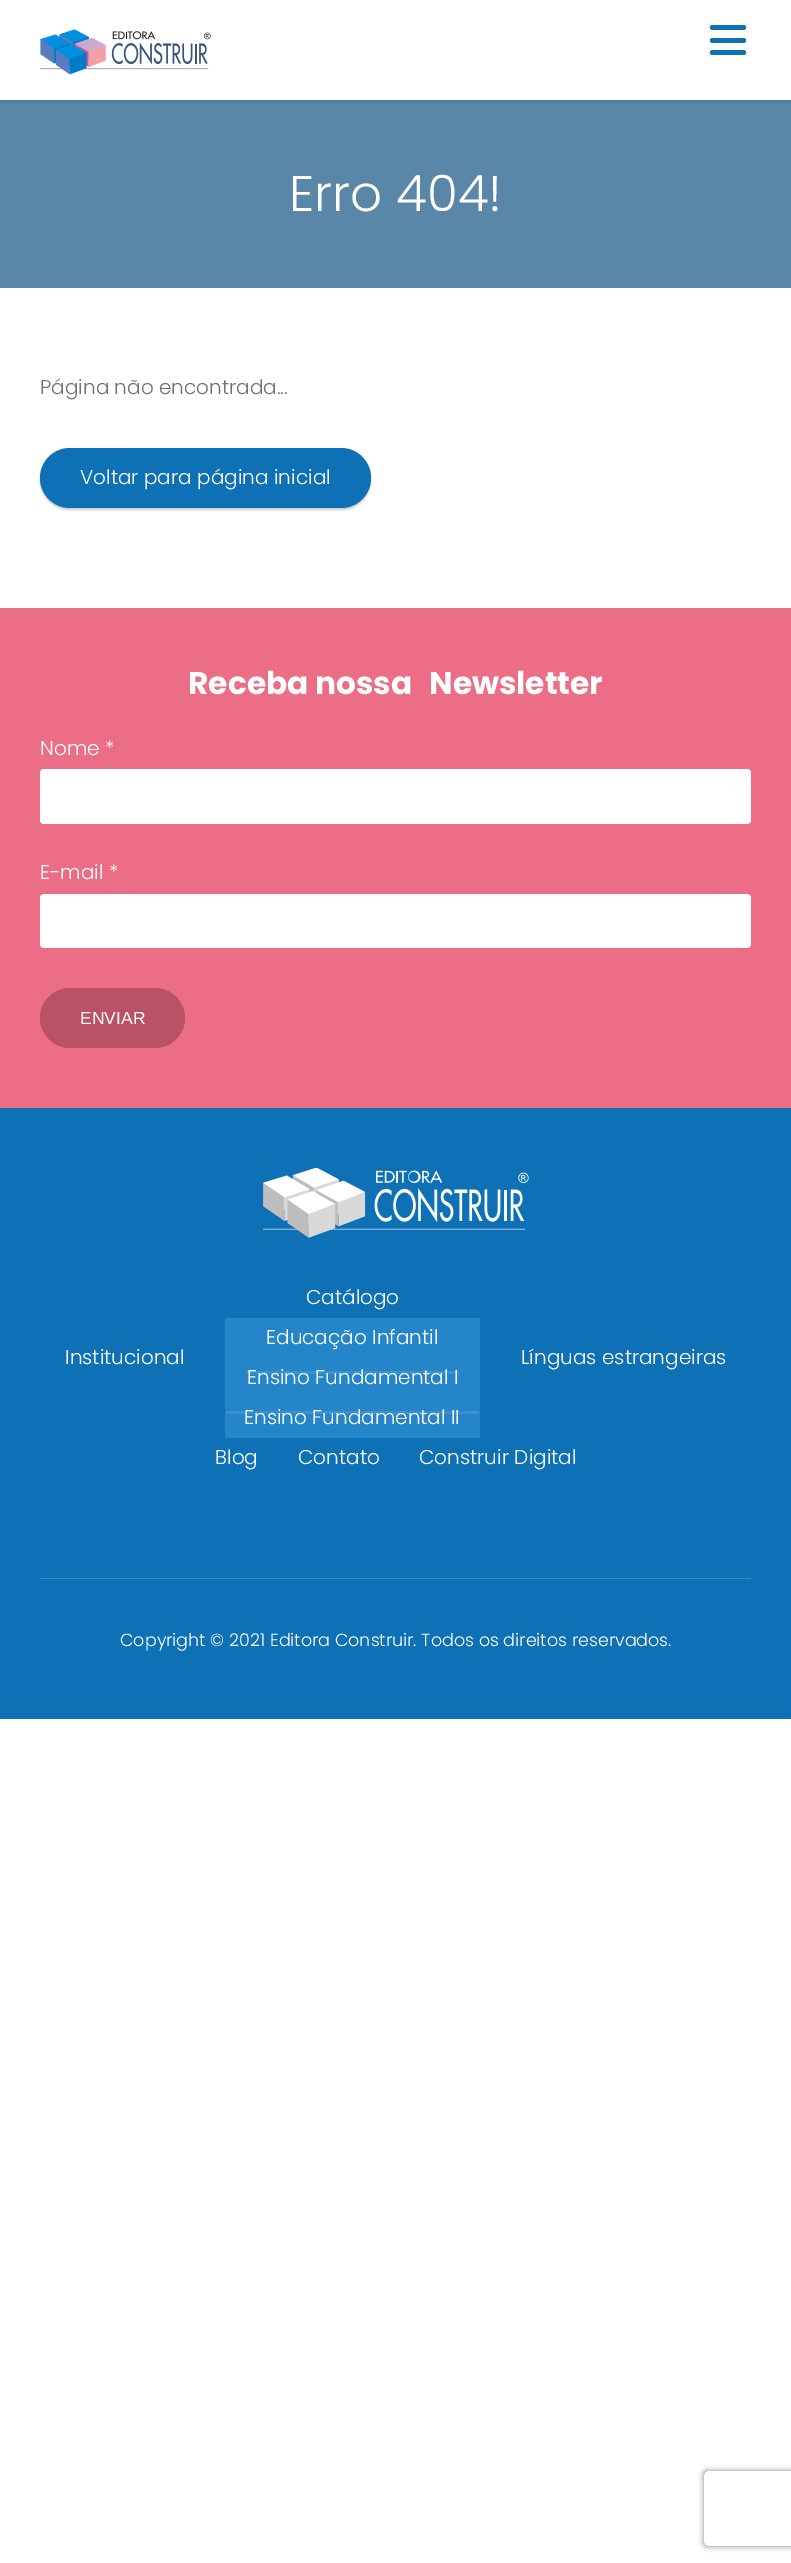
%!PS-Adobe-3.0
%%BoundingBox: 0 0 791 2563
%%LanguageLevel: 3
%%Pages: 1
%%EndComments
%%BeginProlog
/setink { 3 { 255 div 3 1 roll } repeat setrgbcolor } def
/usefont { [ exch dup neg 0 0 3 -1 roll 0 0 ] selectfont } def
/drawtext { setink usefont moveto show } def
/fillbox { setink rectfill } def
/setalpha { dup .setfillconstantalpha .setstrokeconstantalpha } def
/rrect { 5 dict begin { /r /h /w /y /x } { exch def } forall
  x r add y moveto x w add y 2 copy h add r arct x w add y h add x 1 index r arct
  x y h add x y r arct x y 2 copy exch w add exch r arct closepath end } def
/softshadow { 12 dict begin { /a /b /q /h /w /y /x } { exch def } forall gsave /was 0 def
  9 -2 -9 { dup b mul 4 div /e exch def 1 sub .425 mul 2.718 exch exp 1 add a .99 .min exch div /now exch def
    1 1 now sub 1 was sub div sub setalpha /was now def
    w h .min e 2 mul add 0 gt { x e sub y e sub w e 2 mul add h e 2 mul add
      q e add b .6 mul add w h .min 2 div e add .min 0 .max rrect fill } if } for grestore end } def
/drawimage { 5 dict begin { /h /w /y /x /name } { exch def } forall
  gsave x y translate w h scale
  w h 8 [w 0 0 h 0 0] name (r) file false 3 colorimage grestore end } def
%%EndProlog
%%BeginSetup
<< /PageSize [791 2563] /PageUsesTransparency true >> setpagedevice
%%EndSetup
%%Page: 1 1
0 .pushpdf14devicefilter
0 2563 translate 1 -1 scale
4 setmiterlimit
0 0 791 2563 255 255 255 fillbox
0 100 791 188 90 135 167 fillbox
gsave
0 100 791 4 rectclip
0 0 0 setink
0 0 791 100 0 3 0.2 softshadow
grestore
(assets/img1.rgb) 40 29 171 46 drawimage
15 113 181 setink
710 25 36 5 2.5 rrect fill
710 38 36 5 2.5 rrect fill
710 50 36 5 2.5 rrect fill
(Erro 404!) 289 211 /Poppins-Light 50 255 255 255 drawtext
(Página não encontrada...) 40 394 /Poppins-Light 20 113 113 113 drawtext
0 0 0 setink
40 450 331 60 30 1 0.2 softshadow
15 113 181 setink
40 448 331 60 30 rrect fill
(Voltar para página inicial) 80 484 /Poppins-Light 20 255 255 255 drawtext
0 608 791 500 235 110 134 fillbox
(Receba nossa) 188 694 /Poppins-Bold 31.25 255 255 255 drawtext
(Newsletter) 429 694 /Poppins-Bold 31.25 255 255 255 drawtext
(Nome *) 40 755 /Poppins-Light 20 255 255 255 drawtext
40 769 711 55 4 rrect fill
(E-mail *) 40 879 /Poppins-Light 20 255 255 255 drawtext
40 894 711 54 4 rrect fill
186 82 102 setink
40 988 145 60 30 rrect fill
(ENVIAR) 80 1024 /LiberationSans-Regular 17.5 255 255 255 drawtext
0 1108 791 611 15 113 181 fillbox
(assets/img2.rgb) 263 1168 266 70 drawimage
(Institucional) 65 1364 /Poppins-Light 20 255 255 255 drawtext
(Catálogo) 306 1304 /Poppins-Light 20 255 255 255 drawtext
225 1318 255 120 36 133 200 fillbox
(Educação Infantil) 266 1344 /Poppins-Light 20 255 255 255 drawtext
246 1371 213 3 58 145 206 fillbox
(Ensino Fundamental I) 247 1384 /Poppins-Light 20 255 255 255 drawtext
226 1411 253 3 58 145 206 fillbox
(Ensino Fundamental II) 244 1424 /Poppins-Light 20 255 255 255 drawtext
(Línguas estrangeiras) 521 1364 /Poppins-Light 20 255 255 255 drawtext
(Blog) 215 1464 /Poppins-Light 20 255 255 255 drawtext
(Contato) 298 1464 /Poppins-Light 20 255 255 255 drawtext
(Construir Digital) 419 1464 /Poppins-Light 20 255 255 255 drawtext
40 1578 711 1 58 139 194 fillbox
(Copyright © 2021 Editora Construir. Todos os direitos reservados.) 120 1646 /Poppins-Light 17.5 255 255 255 drawtext
gsave
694 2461 moveto 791 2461 lineto 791 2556 lineto 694 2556 lineto closepath 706.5 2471 moveto 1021.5 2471 lineto 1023 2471 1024 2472 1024 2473.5 curveto 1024 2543.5 lineto 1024 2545 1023 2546 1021.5 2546 curveto 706.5 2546 lineto 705 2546 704 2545 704 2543.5 curveto 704 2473.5 lineto 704 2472 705 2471 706.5 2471 curveto closepath eoclip newpath
128 128 128 setink
704 2471 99 75 2.5 3 1 softshadow
grestore
.poppdf14devicefilter showpage
%%EOF
